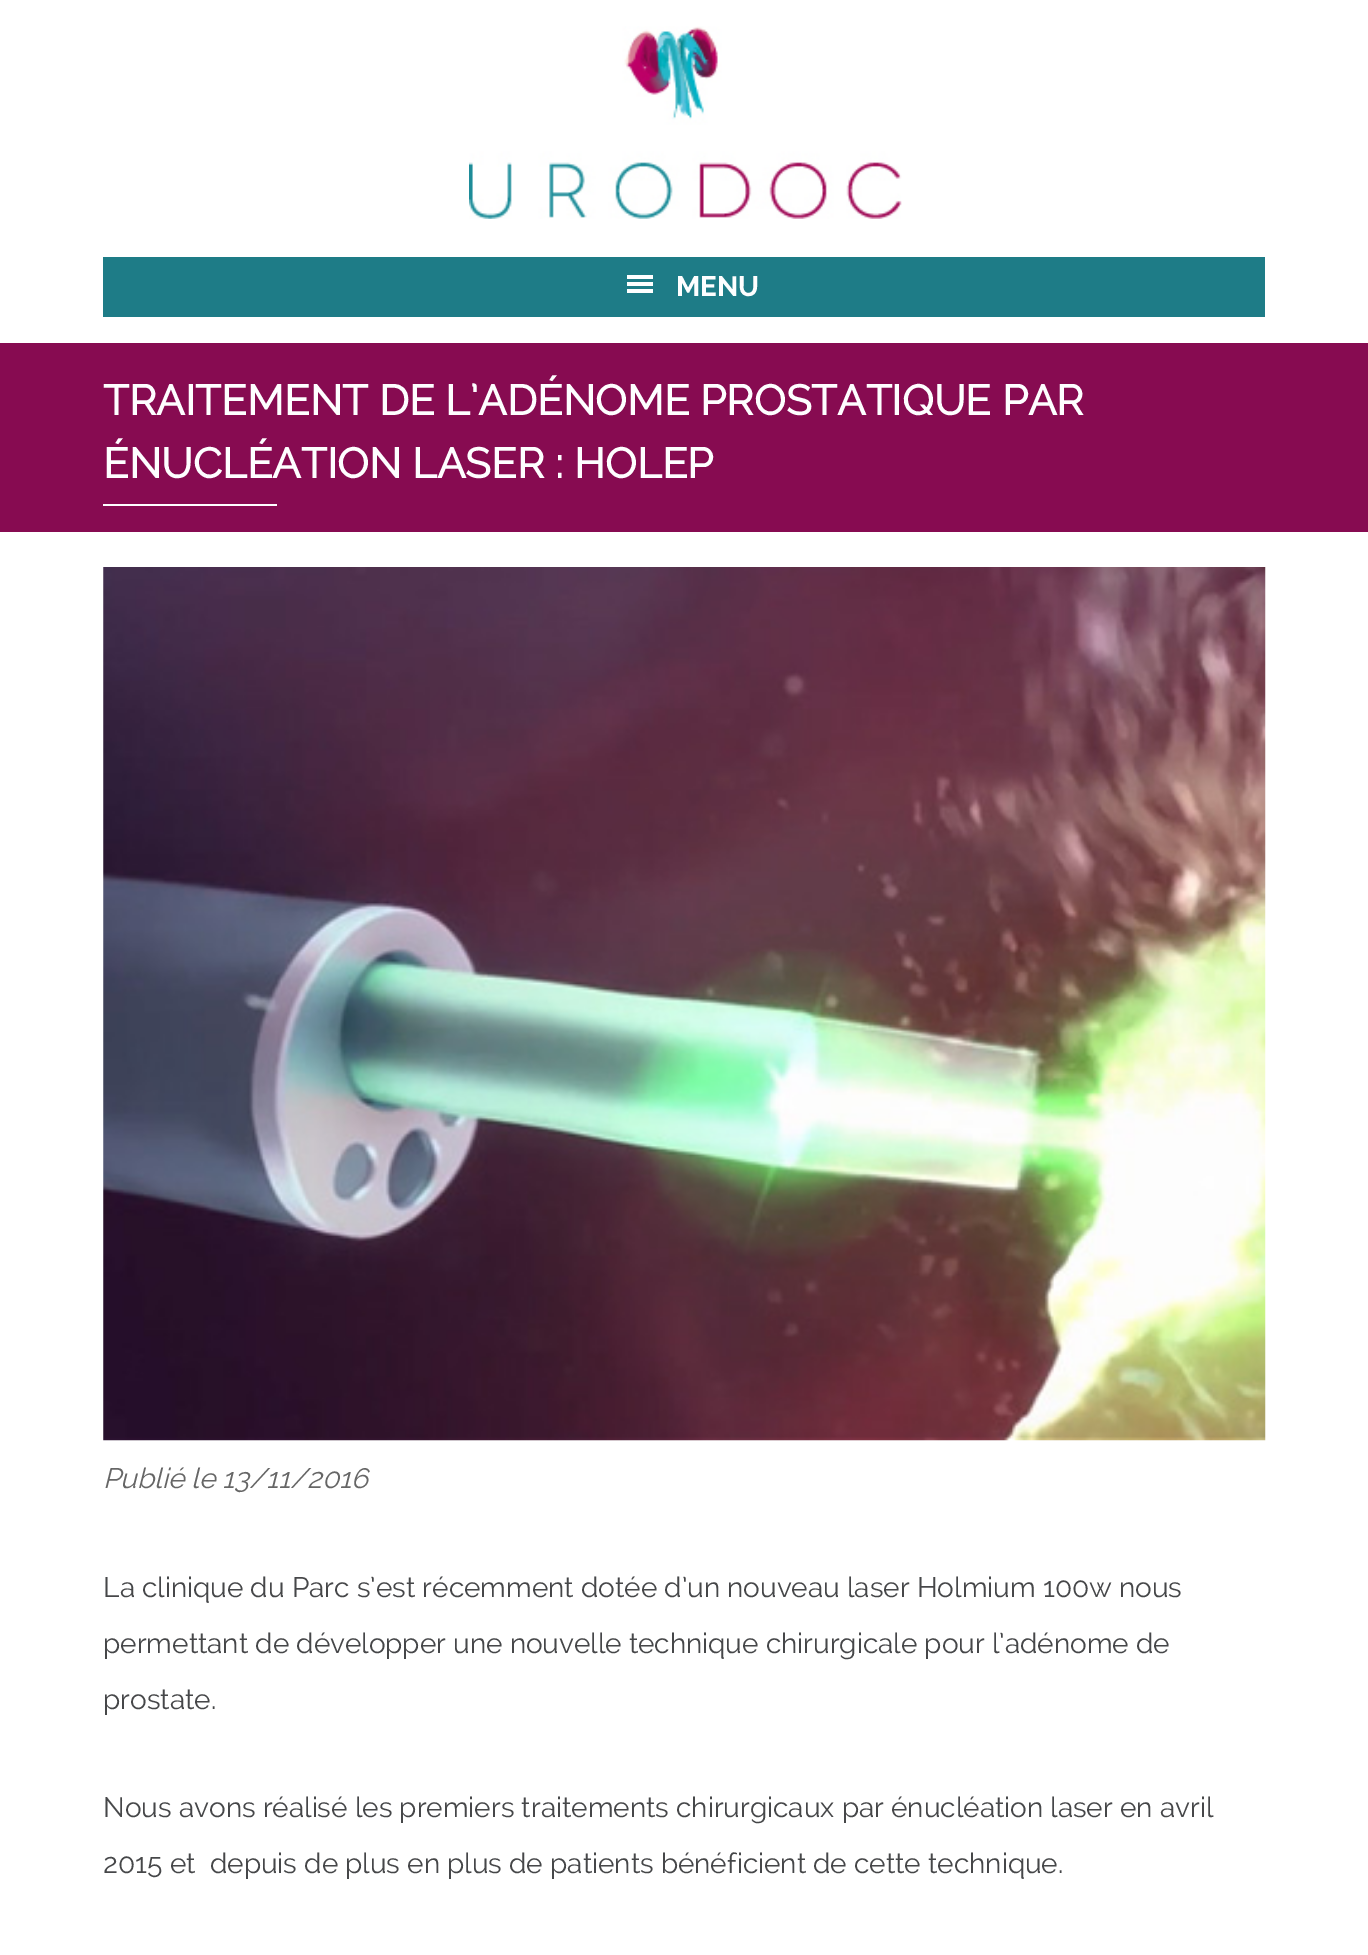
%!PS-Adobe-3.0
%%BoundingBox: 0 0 1368 1955
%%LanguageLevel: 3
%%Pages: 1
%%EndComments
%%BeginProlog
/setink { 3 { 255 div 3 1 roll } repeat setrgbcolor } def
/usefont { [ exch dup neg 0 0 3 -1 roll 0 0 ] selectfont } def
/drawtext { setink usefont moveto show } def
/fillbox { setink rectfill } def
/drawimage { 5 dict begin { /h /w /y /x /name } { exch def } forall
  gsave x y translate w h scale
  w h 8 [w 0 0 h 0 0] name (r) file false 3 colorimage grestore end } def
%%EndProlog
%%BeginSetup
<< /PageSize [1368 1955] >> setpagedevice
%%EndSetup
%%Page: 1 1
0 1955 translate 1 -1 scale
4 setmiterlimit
0 0 1368 1955 255 255 255 fillbox
(assets/img1.rgb) 469 26 433 193 drawimage
103 257 1162 60 30 124 135 fillbox
627 275 26 4 255 255 255 fillbox
627 282 26 4 255 255 255 fillbox
627 289 26 4 255 255 255 fillbox
(MENU) 676 296 /Raleway-Bold 28 254 254 255 drawtext
0 343 1368 189 135 11 81 fillbox
(TRAITEMENT DE L’ADÉNOME PROSTATIQUE PAR) 103 415 /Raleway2-Bold 42 254 254 255 drawtext
(ÉNUCLÉATION LASER : HOLEP) 103 478 /Raleway2-Bold 42 254 254 255 drawtext
103 504 174 2 254 254 255 fillbox
(assets/img2.rgb) 103 567 1163 874 drawimage
(Publié le 13/11/2016) 103 1488 /Raleway-Italic 28 102 102 102 drawtext
(La clinique du Parc s’est récemment dotée d’un nouveau laser Holmium 100w nous) 103 1597 /Raleway-Regular 28 70 71 73 drawtext
(permettant de développer une nouvelle technique chirurgicale pour l’adénome de) 103 1653 /Raleway-Regular 28 70 71 73 drawtext
(prostate.) 103 1709 /Raleway-Regular 28 70 71 73 drawtext
(Nous avons réalisé les premiers traitements chirurgicaux par énucléation laser en avril) 103 1817 /Raleway-Regular 28 70 71 73 drawtext
(2015 et  depuis de plus en plus de patients bénéficient de cette technique.) 103 1873 /Raleway-Regular 28 70 71 73 drawtext
showpage
%%EOF
